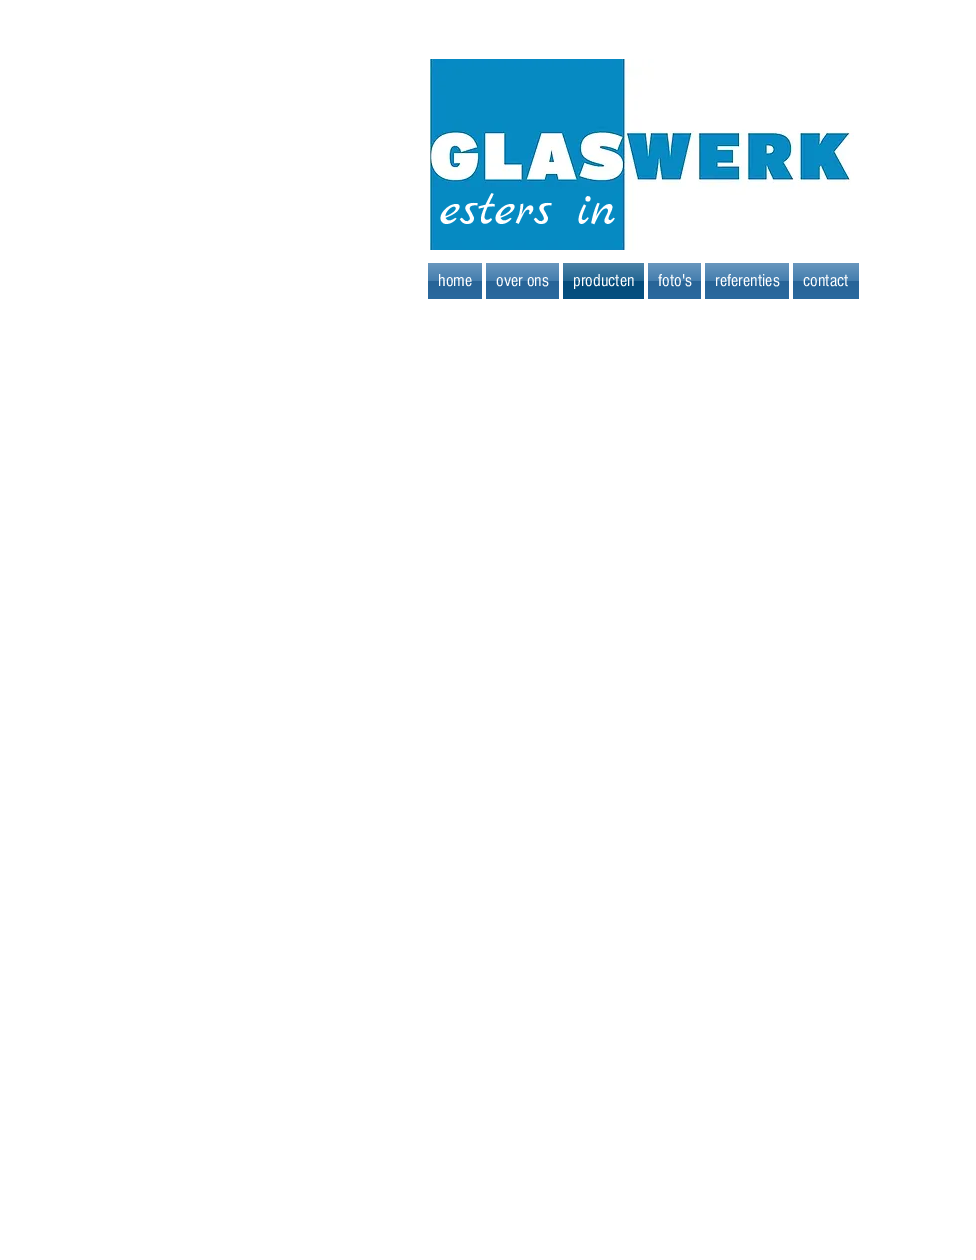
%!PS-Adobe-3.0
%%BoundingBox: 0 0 976 1260
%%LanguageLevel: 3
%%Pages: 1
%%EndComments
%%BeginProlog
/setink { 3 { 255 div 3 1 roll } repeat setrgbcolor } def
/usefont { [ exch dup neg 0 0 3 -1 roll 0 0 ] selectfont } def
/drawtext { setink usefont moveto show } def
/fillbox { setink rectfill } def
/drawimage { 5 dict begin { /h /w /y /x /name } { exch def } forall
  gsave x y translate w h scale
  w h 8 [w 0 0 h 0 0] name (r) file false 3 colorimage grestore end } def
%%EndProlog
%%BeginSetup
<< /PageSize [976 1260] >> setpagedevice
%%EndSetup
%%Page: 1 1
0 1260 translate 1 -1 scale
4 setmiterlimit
0 0 976 1260 255 255 255 fillbox
(assets/img1.rgb) 430 59 424 191 drawimage
(esters in) 440 224 /MarckScript-Regular 53 255 255 255 drawtext
428 263 54 36 43 108 163 fillbox
(assets/img2.rgb) 428 263 54 36 drawimage
(home) 438 286 /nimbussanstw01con-Regular 18 255 255 255 drawtext
486 263 73 36 43 108 163 fillbox
(assets/img3.rgb) 486 263 73 36 drawimage
(over ons) 496 286 /nimbussanstw01con-Regular 18 255 255 255 drawtext
563 263 81 36 4 81 132 fillbox
(assets/img4.rgb) 563 263 81 36 drawimage
(producten) 573 286 /nimbussanstw01con-Regular 18 255 255 255 drawtext
648 263 53 36 43 108 163 fillbox
(assets/img5.rgb) 648 263 53 36 drawimage
(foto's) 658 286 /nimbussanstw01con-Regular 18 255 255 255 drawtext
705 263 84 36 43 108 163 fillbox
(assets/img6.rgb) 705 263 84 36 drawimage
(referenties) 715 286 /nimbussanstw01con-Regular 18 255 255 255 drawtext
793 263 66 36 43 108 163 fillbox
(assets/img7.rgb) 793 263 66 36 drawimage
(contact) 803 286 /nimbussanstw01con-Regular 18 255 255 255 drawtext
showpage
%%EOF
